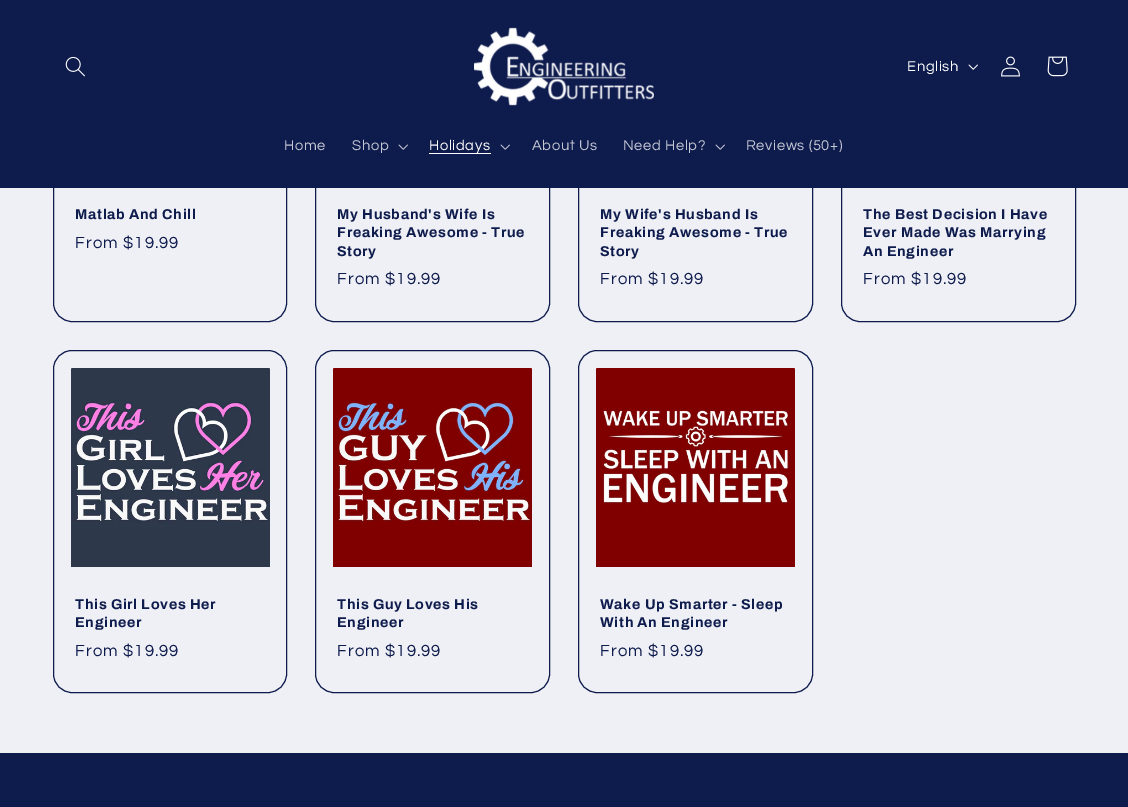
%!PS-Adobe-3.0
%%BoundingBox: 0 0 1128 807
%%LanguageLevel: 3
%%Pages: 1
%%EndComments
%%BeginProlog
/setink { 3 { 255 div 3 1 roll } repeat setrgbcolor } def
/usefont { [ exch dup neg 0 0 3 -1 roll 0 0 ] selectfont } def
/fillbox { setink rectfill } def
/rrect { 5 dict begin { /r /h /w /y /x } { exch def } forall
  x r add y moveto x w add y 2 copy h add r arct x w add y h add x 1 index r arct
  x y h add x y r arct x y 2 copy exch w add exch r arct closepath end } def
/drawimage { 5 dict begin { /h /w /y /x /name } { exch def } forall
  gsave x y translate w h scale
  w h 8 [w 0 0 h 0 0] name (r) file false 3 colorimage grestore end } def
%%EndProlog
%%BeginSetup
<< /PageSize [1128 807] >> setpagedevice
%%EndSetup
%%Page: 1 1
0 807 translate 1 -1 scale
4 setmiterlimit
0 0 1128 807 239 240 245 fillbox
14 27 77 setink
53.5 -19.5 233 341 18.5 rrect stroke
315.5 -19.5 234 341 18.5 rrect stroke
578.5 -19.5 234 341 18.5 rrect stroke
841.5 -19.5 234 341 18.5 rrect stroke
0 0 1128 188 14 27 77 fillbox
(assets/img1.rgb) 65 56 20 21 drawimage
(assets/img2.rgb) 474 27 180 79 drawimage
/Questrial-Regular 14.75 usefont
255 255 255 setink
907 71 moveto 0.6 0 (English) ashow
(assets/img3.rgb) 968 64 10 6 drawimage
(assets/img4.rgb) 1001 56 19 21 drawimage
(assets/img5.rgb) 1047 56 21 21 drawimage
195 198 211 setink
284 150 moveto 0.6 0 (Home) ashow
352 150 moveto 0.6 0 (Shop) ashow
(assets/img6.rgb) 398 144 10 6 drawimage
255 255 255 setink
429 150 moveto 0.6 0 (Holidays) ashow
429 153 62 1 255 255 255 fillbox
(assets/img6.rgb) 500 144 10 6 drawimage
195 198 211 setink
532 150 moveto 0.6 0 (About Us) ashow
623 150 moveto 0.6 0 (Need Help?) ashow
(assets/img6.rgb) 715 144 10 6 drawimage
746 150 moveto 0.6 0 (Reviews \(50+\)) ashow
/Archivo-Bold 14.25 usefont
14 27 77 setink
75 219 moveto 0.7 0 (Matlab And Chill) ashow
/Questrial-Regular 16.75 usefont
75 248 moveto 1 0 (From $19.99) ashow
/Archivo-Bold 14.25 usefont
337 219 moveto 0.7 0 (My Husband's Wife Is) ashow
337 237 moveto 0.7 0 (Freaking Awesome - True) ashow
337 256 moveto 0.7 0 (Story) ashow
/Questrial-Regular 16.75 usefont
337 284 moveto 1 0 (From $19.99) ashow
/Archivo-Bold 14.25 usefont
600 219 moveto 0.7 0 (My Wife's Husband Is) ashow
600 237 moveto 0.7 0 (Freaking Awesome - True) ashow
600 256 moveto 0.7 0 (Story) ashow
/Questrial-Regular 16.75 usefont
600 284 moveto 1 0 (From $19.99) ashow
/Archivo-Bold 14.25 usefont
863 219 moveto 0.7 0 (The Best Decision I Have) ashow
863 237 moveto 0.7 0 (Ever Made Was Marrying) ashow
863 256 moveto 0.7 0 (An Engineer) ashow
/Questrial-Regular 16.75 usefont
863 284 moveto 1 0 (From $19.99) ashow
53.5 350.5 233 342 18.5 rrect stroke
(assets/img7.rgb) 71 368 199 199 drawimage
/Archivo-Bold 14.25 usefont
75 609 moveto 0.7 0 (This Girl Loves Her) ashow
75 627 moveto 0.7 0 (Engineer) ashow
/Questrial-Regular 16.75 usefont
75 656 moveto 1 0 (From $19.99) ashow
315.5 350.5 234 342 18.5 rrect stroke
(assets/img8.rgb) 333 368 199 199 drawimage
/Archivo-Bold 14.25 usefont
337 609 moveto 0.7 0 (This Guy Loves His) ashow
337 627 moveto 0.7 0 (Engineer) ashow
/Questrial-Regular 16.75 usefont
337 656 moveto 1 0 (From $19.99) ashow
578.5 350.5 234 342 18.5 rrect stroke
(assets/img9.rgb) 596 368 199 199 drawimage
/Archivo-Bold 14.25 usefont
600 609 moveto 0.7 0 (Wake Up Smarter - Sleep) ashow
600 627 moveto 0.7 0 (With An Engineer) ashow
/Questrial-Regular 16.75 usefont
600 656 moveto 1 0 (From $19.99) ashow
0 753 1128 54 14 27 77 fillbox
showpage
%%EOF
